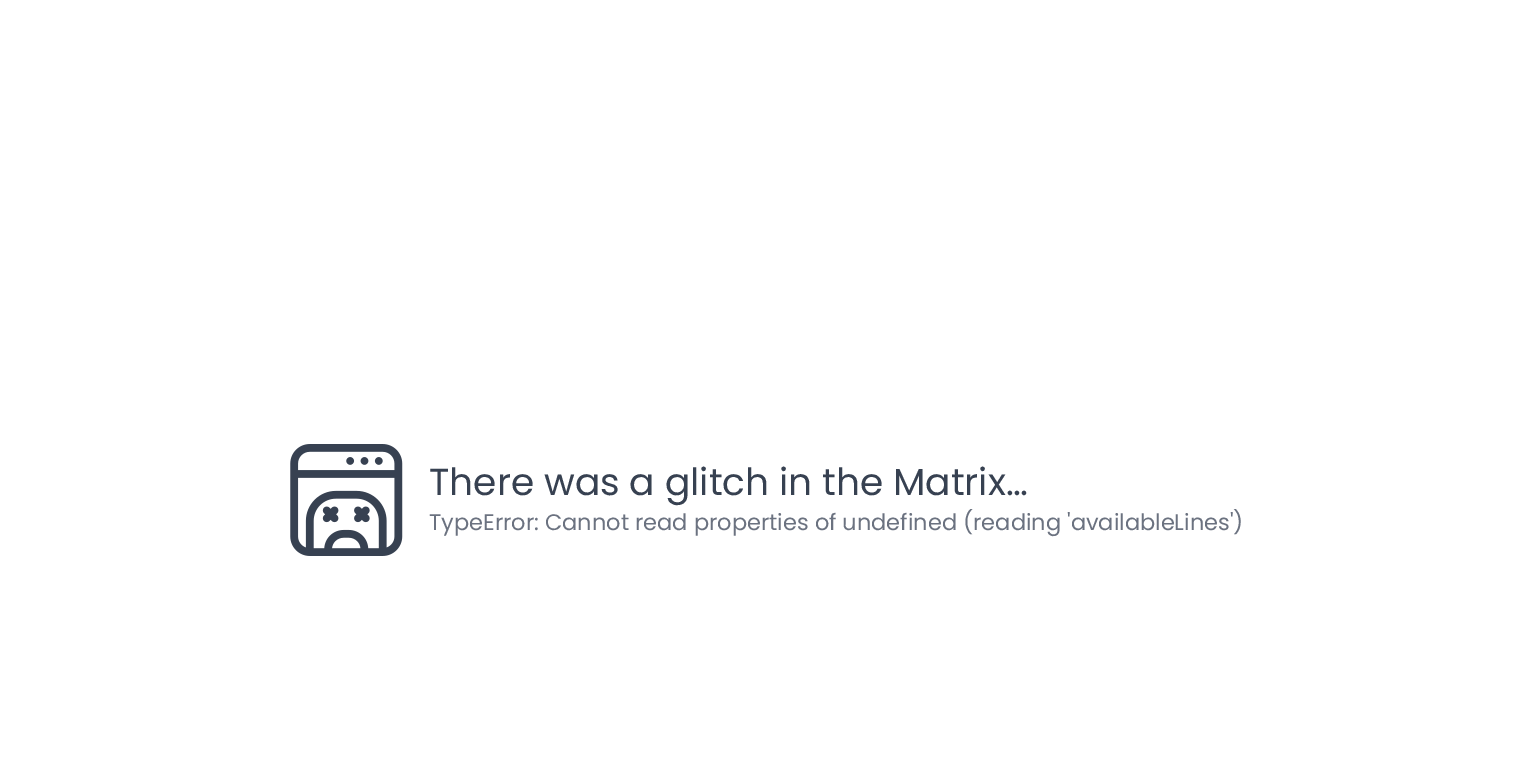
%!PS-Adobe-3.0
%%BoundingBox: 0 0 1527 760
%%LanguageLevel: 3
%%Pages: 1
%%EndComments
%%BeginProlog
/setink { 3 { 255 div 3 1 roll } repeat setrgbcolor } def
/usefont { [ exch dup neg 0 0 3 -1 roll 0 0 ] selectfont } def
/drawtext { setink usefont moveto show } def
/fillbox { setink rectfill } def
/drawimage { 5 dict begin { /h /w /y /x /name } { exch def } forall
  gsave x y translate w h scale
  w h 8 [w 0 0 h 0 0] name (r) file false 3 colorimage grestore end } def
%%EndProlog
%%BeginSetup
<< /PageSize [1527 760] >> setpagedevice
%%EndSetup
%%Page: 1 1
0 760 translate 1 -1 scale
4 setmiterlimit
0 0 1527 760 255 255 255 fillbox
(assets/img1.rgb) 290 444 113 112 drawimage
(There was a glitch in the Matrix…) 429 495 /Poppins-Regular 37.5 55 65 81 drawtext
(TypeError: Cannot read properties of undefined \(reading 'availableLines'\)) 429 530 /Poppins-Regular 22.5 107 114 128 drawtext
showpage
%%EOF
